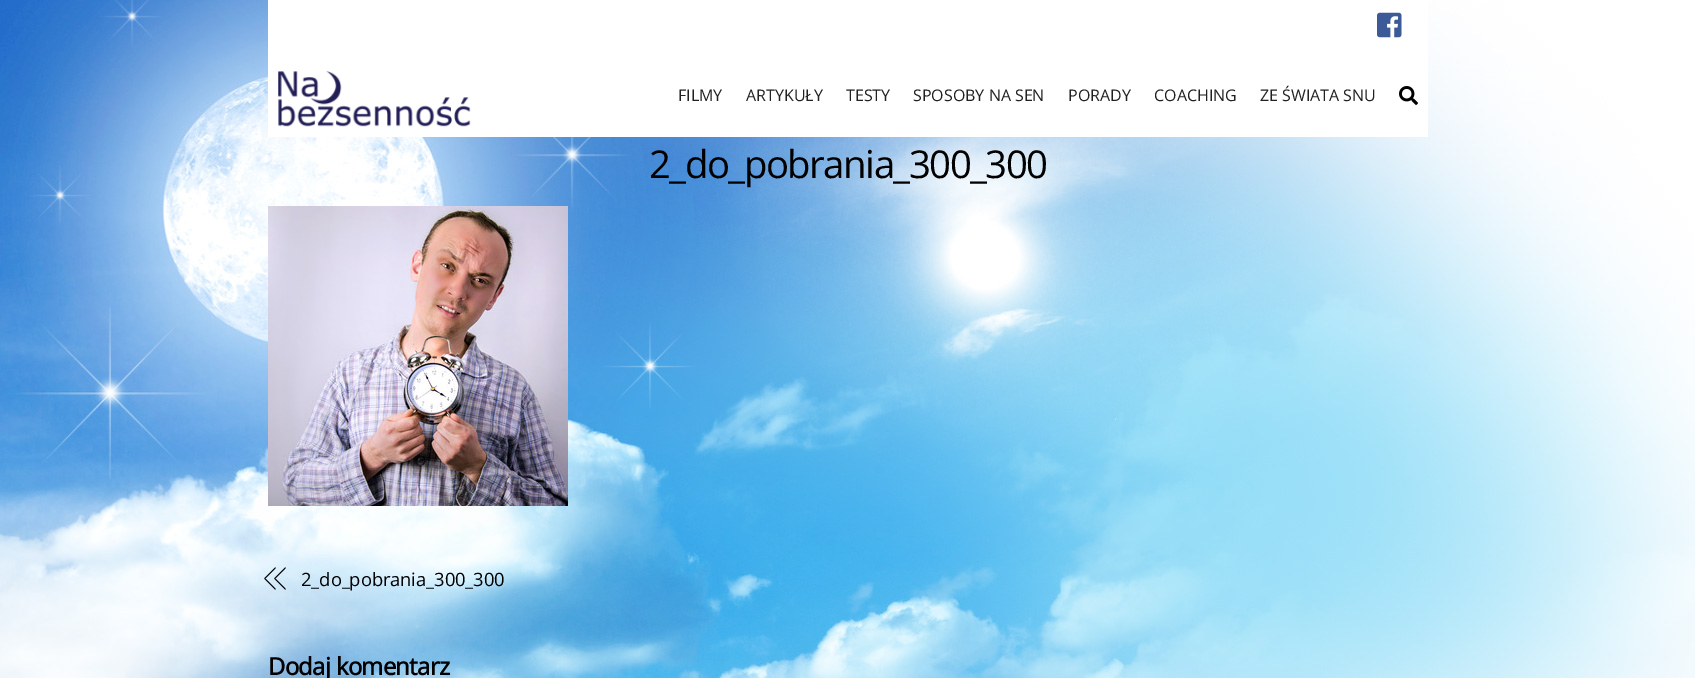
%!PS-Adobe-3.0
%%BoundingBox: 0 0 1695 678
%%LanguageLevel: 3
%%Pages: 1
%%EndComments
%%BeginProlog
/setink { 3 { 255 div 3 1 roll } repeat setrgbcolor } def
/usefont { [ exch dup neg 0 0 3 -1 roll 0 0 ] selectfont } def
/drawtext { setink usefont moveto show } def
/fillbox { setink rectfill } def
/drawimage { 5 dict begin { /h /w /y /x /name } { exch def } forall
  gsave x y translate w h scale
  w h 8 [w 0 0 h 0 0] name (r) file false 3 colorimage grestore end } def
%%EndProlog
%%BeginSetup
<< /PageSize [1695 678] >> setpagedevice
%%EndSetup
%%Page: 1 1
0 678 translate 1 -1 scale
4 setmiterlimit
0 0 1695 678 255 255 255 fillbox
(assets/img1.rgb) 0 0 1695 678 drawimage
268 0 1160 137 255 255 255 fillbox
(assets/img2.rgb) 1377 12 25 26 drawimage
(assets/img3.rgb) 278 71 193 56 drawimage
(FILMY) 678 101 /OpenSans-Regular 16 33 33 33 drawtext
(ARTYKUŁY) 746 101 /OpenSans-Regular 16 33 33 33 drawtext
(TESTY) 846 101 /OpenSans-Regular 16 33 33 33 drawtext
(SPOSOBY NA SEN) 913 101 /OpenSans-Regular 16 33 33 33 drawtext
(PORADY) 1068 101 /OpenSans-Regular 16 33 33 33 drawtext
(COACHING) 1154 101 /OpenSans-Regular 16 33 33 33 drawtext
(ZE ŚWIATA SNU) 1260 101 /OpenSans-Regular 16 33 33 33 drawtext
(assets/img4.rgb) 1399 86 19 19 drawimage
/OpenSans-Regular 38.4 usefont
0 0 0 setink
649 178 moveto -1.5 0 (2_do_pobrania_300_300) ashow
(assets/img5.rgb) 268 206 300 300 drawimage
264 578.5 moveto 275.5 567 lineto 275.5 568.5 lineto 265.5 578.5 lineto closepath fill
275.5 590 moveto 264 578.5 lineto 265.5 578.5 lineto 275.5 588.5 lineto closepath fill
274 578.5 moveto 285.5 567 lineto 285.5 568.5 lineto 275.5 578.5 lineto closepath fill
285.5 590 moveto 274 578.5 lineto 275.5 578.5 lineto 285.5 588.5 lineto closepath fill
/OpenSans-Regular 18.4 usefont
301 586 moveto -0.1 0 (2_do_pobrania_300_300) ashow
/OpenSans-Bold 24 usefont
268 675 moveto -0.75 0 (Dodaj komentarz) ashow
showpage
%%EOF
